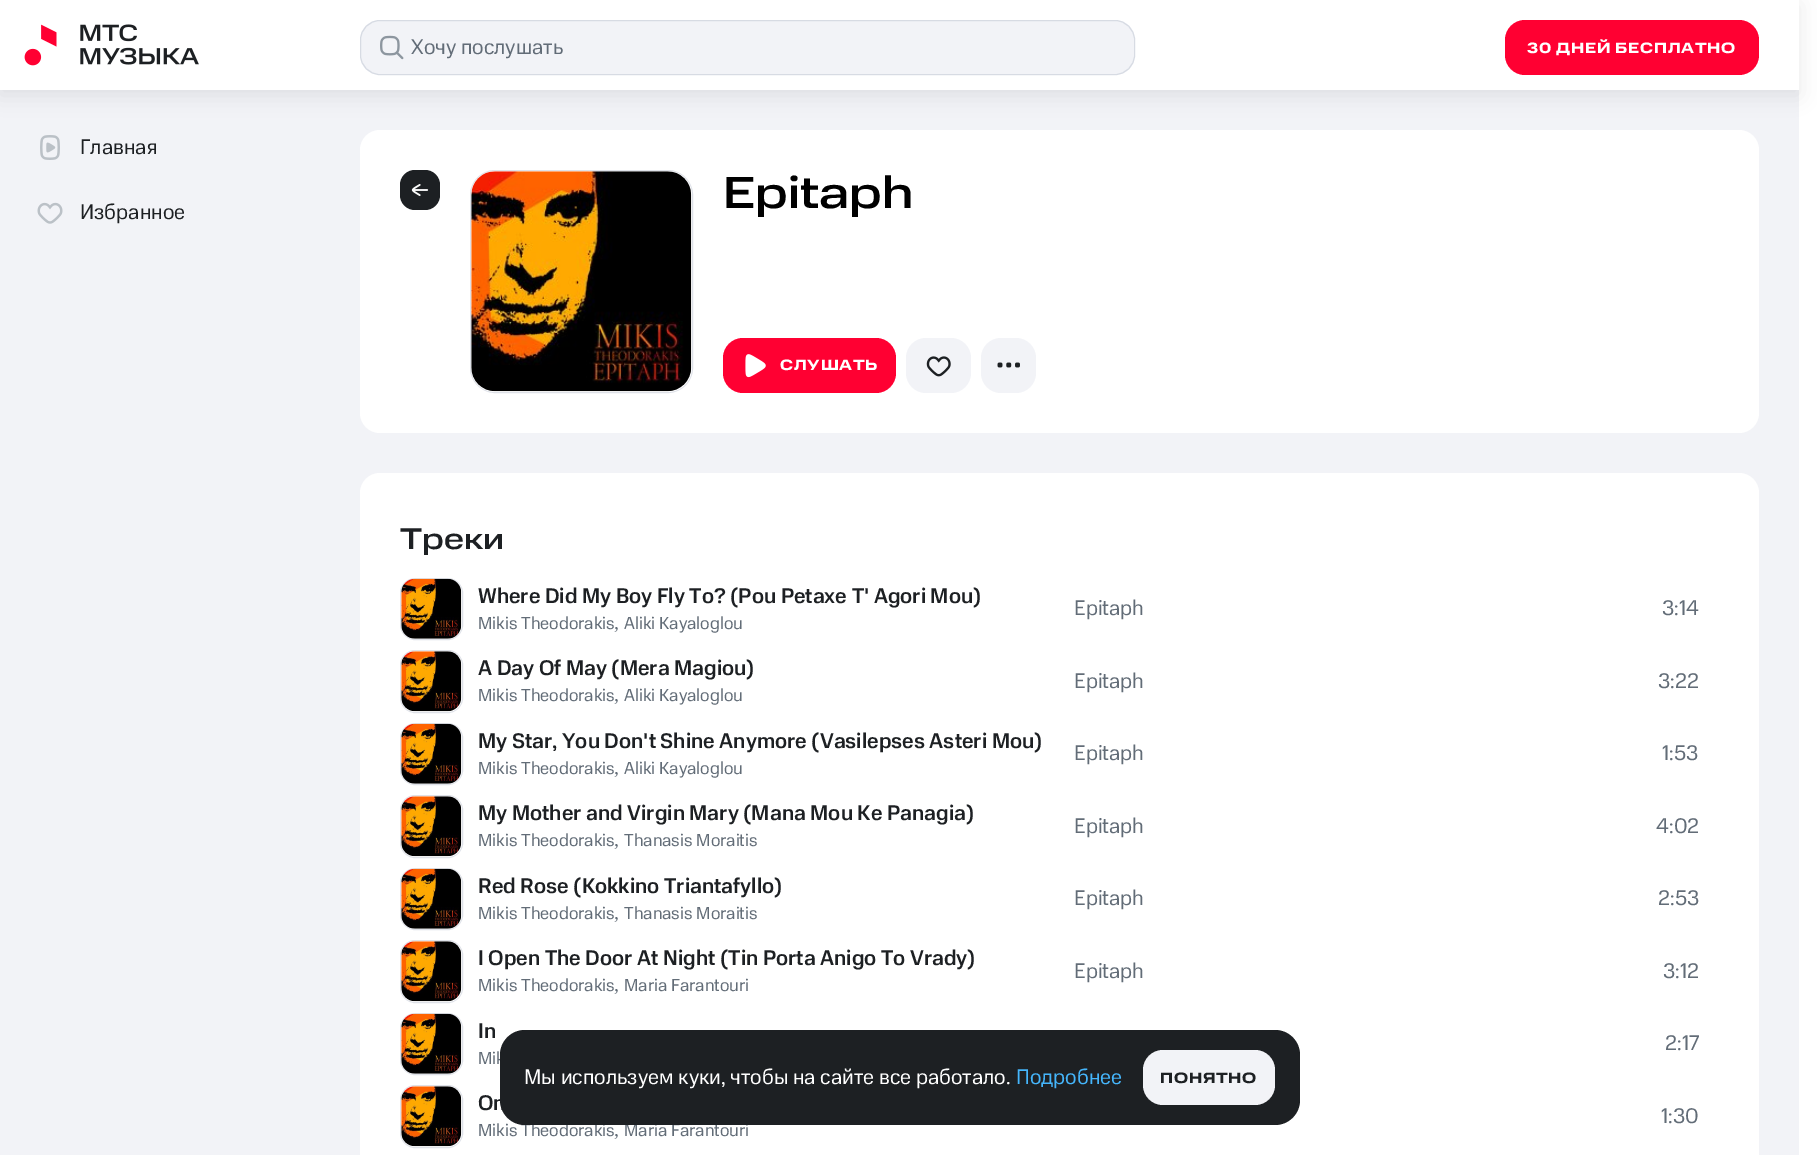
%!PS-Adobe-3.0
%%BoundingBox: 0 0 1817 1155
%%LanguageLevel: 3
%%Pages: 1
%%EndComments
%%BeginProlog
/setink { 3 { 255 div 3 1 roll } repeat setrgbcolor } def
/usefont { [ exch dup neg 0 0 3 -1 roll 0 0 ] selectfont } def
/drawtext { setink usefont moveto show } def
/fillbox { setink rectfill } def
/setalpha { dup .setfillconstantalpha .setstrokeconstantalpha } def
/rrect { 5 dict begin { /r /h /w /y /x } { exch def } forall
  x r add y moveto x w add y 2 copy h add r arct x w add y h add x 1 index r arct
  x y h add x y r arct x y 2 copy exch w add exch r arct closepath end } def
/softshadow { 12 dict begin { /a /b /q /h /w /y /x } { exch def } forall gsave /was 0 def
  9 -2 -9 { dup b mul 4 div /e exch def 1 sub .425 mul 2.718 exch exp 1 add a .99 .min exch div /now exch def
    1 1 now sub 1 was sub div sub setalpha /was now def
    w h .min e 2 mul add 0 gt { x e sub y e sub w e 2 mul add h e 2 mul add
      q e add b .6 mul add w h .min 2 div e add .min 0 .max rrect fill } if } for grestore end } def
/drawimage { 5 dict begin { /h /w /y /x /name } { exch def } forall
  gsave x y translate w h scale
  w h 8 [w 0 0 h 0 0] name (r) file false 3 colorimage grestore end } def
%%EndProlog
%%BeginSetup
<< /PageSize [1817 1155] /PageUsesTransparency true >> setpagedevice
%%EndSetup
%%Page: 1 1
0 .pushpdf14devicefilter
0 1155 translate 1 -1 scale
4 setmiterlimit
0 0 1817 1155 255 255 255 fillbox
0 90 1799 1065 242 243 247 fillbox
gsave
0 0 moveto 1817 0 lineto 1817 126 lineto 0 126 lineto closepath 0 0 moveto 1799 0 lineto 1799 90 lineto 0 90 lineto closepath eoclip newpath
0 0 0 setink
0 5 1799 90 0 10 0.08 softshadow
grestore
(assets/img1.rgb) 24 24 175 42 drawimage
360 20 775 55 20 rrect fill
0.5 setalpha
188 195 208 setink
360.5 20.5 774 54 19.5 rrect stroke
1 setalpha
(assets/img2.rgb) 380 35 24 25 drawimage
(Хочу послушать) 411 54 /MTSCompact-Regular 21.25 98 108 119 drawtext
255 0 50 setink
1505 20 254 55 20 rrect fill
/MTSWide-Bold 15 usefont
255 255 255 setink
1527 53 moveto 0.75 0 (30 ДНЕЙ БЕСПЛАТНО) ashow
(assets/img3.rgb) 40 135 20 25 drawimage
(Главная) 80 154 /MTSCompact-Regular 21.25 29 32 35 drawtext
(assets/img4.rgb) 37 202 26 22 drawimage
(Избранное) 80 219 /MTSCompact-Regular 21.25 29 32 35 drawtext
255 255 255 setink
360 130 1399 303 20 rrect fill
29 32 35 setink
400 170 40 40 15 rrect fill
(assets/img5.rgb) 411 184 18 12 drawimage
222 225 232 setink
470.5 170.5 222 222 24.5 rrect stroke
(assets/img6.rgb) 471 171 221 221 drawimage
(Epitaph) 723 208 /MTSWide-Medium 45 0 0 0 drawtext
255 0 50 setink
723 338 173 55 20 rrect fill
(assets/img7.rgb) 745 354 21 24 drawimage
/MTSWide-Bold 15 usefont
255 255 255 setink
780 370 moveto 0.75 0 (СЛУШАТЬ) ashow
242 243 247 setink
906 338 65 55 20 rrect fill
(assets/img8.rgb) 926 356 25 21 drawimage
981 338 55 55 20 rrect fill
(assets/img9.rgb) 997 362 23 6 drawimage
255 255 255 setink
360 473 1399 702 20 rrect fill
(Треки) 400 549 /MTSWide-Medium 30 29 32 35 drawtext
222 225 232 setink
400.5 578.5 62 61 14.5 rrect stroke
(assets/img10.rgb) 401 578 61 61 drawimage
(Where Did My Boy Fly To? \(Pou Petaxe T' Agori Mou\)) 478 603 /MTSCompact-Medium 21.25 29 32 35 drawtext
(Mikis Theodorakis) 478 629 /MTSCompact-Regular 17.5 98 108 119 drawtext
(,) 614 629 /LiberationSerif-Regular 20 98 108 119 drawtext
(Aliki Kayaloglou) 624 629 /MTSCompact-Regular 17.5 98 108 119 drawtext
(Epitaph) 1074 615 /MTSCompact-Regular 21.25 98 108 119 drawtext
(3:14) 1662 615 /MTSCompact-Regular 21.25 98 108 119 drawtext
222 225 232 setink
400.5 650.5 62 62 14.5 rrect stroke
(assets/img11.rgb) 401 651 61 61 drawimage
(A Day Of May \(Mera Magiou\)) 478 675 /MTSCompact-Medium 21.25 29 32 35 drawtext
(Mikis Theodorakis) 478 701 /MTSCompact-Regular 17.5 98 108 119 drawtext
(,) 614 701 /LiberationSerif-Regular 20 98 108 119 drawtext
(Aliki Kayaloglou) 624 701 /MTSCompact-Regular 17.5 98 108 119 drawtext
(Epitaph) 1074 688 /MTSCompact-Regular 21.25 98 108 119 drawtext
(3:22) 1658 688 /MTSCompact-Regular 21.25 98 108 119 drawtext
222 225 232 setink
400.5 723.5 62 61 14.5 rrect stroke
(assets/img10.rgb) 401 723 61 61 drawimage
(My Star, You Don't Shine Anymore \(Vasilepses Asteri Mou\)) 478 748 /MTSCompact-Medium 21.25 29 32 35 drawtext
(Mikis Theodorakis) 478 774 /MTSCompact-Regular 17.5 98 108 119 drawtext
(,) 614 774 /LiberationSerif-Regular 20 98 108 119 drawtext
(Aliki Kayaloglou) 624 774 /MTSCompact-Regular 17.5 98 108 119 drawtext
(Epitaph) 1074 760 /MTSCompact-Regular 21.25 98 108 119 drawtext
(1:53) 1662 760 /MTSCompact-Regular 21.25 98 108 119 drawtext
222 225 232 setink
400.5 795.5 62 62 14.5 rrect stroke
(assets/img12.rgb) 401 796 61 61 drawimage
(My Mother and Virgin Mary \(Mana Mou Ke Panagia\)) 478 820 /MTSCompact-Medium 21.25 29 32 35 drawtext
(Mikis Theodorakis) 478 846 /MTSCompact-Regular 17.5 98 108 119 drawtext
(,) 614 846 /LiberationSerif-Regular 20 98 108 119 drawtext
(Thanasis Moraitis) 624 846 /MTSCompact-Regular 17.5 98 108 119 drawtext
(Epitaph) 1074 833 /MTSCompact-Regular 21.25 98 108 119 drawtext
(4:02) 1656 833 /MTSCompact-Regular 21.25 98 108 119 drawtext
222 225 232 setink
400.5 868.5 62 61 14.5 rrect stroke
(assets/img10.rgb) 401 868 61 61 drawimage
(Red Rose \(Kokkino Triantafyllo\)) 478 893 /MTSCompact-Medium 21.25 29 32 35 drawtext
(Mikis Theodorakis) 478 919 /MTSCompact-Regular 17.5 98 108 119 drawtext
(,) 614 919 /LiberationSerif-Regular 20 98 108 119 drawtext
(Thanasis Moraitis) 624 919 /MTSCompact-Regular 17.5 98 108 119 drawtext
(Epitaph) 1074 905 /MTSCompact-Regular 21.25 98 108 119 drawtext
(2:53) 1658 905 /MTSCompact-Regular 21.25 98 108 119 drawtext
222 225 232 setink
400.5 940.5 62 62 14.5 rrect stroke
(assets/img12.rgb) 401 941 61 61 drawimage
(I Open The Door At Night \(Tin Porta Anigo To Vrady\)) 478 965 /MTSCompact-Medium 21.25 29 32 35 drawtext
(Mikis Theodorakis) 478 991 /MTSCompact-Regular 17.5 98 108 119 drawtext
(,) 614 991 /LiberationSerif-Regular 20 98 108 119 drawtext
(Maria Farantouri) 624 991 /MTSCompact-Regular 17.5 98 108 119 drawtext
(Epitaph) 1074 978 /MTSCompact-Regular 21.25 98 108 119 drawtext
(3:12) 1663 978 /MTSCompact-Regular 21.25 98 108 119 drawtext
222 225 232 setink
400.5 1013.5 62 61 14.5 rrect stroke
(assets/img13.rgb) 401 1013 61 61 drawimage
(In) 478 1038 /MTSCompact-Medium 21.25 29 32 35 drawtext
(Mik) 478 1064 /MTSCompact-Regular 17.5 98 108 119 drawtext
(2:17) 1665 1050 /MTSCompact-Regular 21.25 98 108 119 drawtext
222 225 232 setink
400.5 1085.5 62 62 14.5 rrect stroke
(assets/img12.rgb) 401 1086 61 61 drawimage
(On) 478 1110 /MTSCompact-Medium 21.25 29 32 35 drawtext
(Mikis Theodorakis) 478 1136 /MTSCompact-Regular 17.5 98 108 119 drawtext
(,) 614 1136 /LiberationSerif-Regular 20 98 108 119 drawtext
(Maria Farantouri) 624 1136 /MTSCompact-Regular 17.5 98 108 119 drawtext
(1:30) 1661 1123 /MTSCompact-Regular 21.25 98 108 119 drawtext
29 32 35 setink
500 1030 800 95 25 rrect fill
(Мы используем куки, чтобы на сайте все работало.) 524 1084 /MTSCompact-Regular 21.25 255 255 255 drawtext
(Подробнее) 1016 1084 /MTSCompact-Regular 21.25 69 182 252 drawtext
242 243 247 setink
1143 1050 132 55 20 rrect fill
/MTSWide-Bold 15 usefont
29 32 35 setink
1160 1083 moveto 0.75 0 (ПОНЯТНО) ashow
.poppdf14devicefilter showpage
%%EOF
